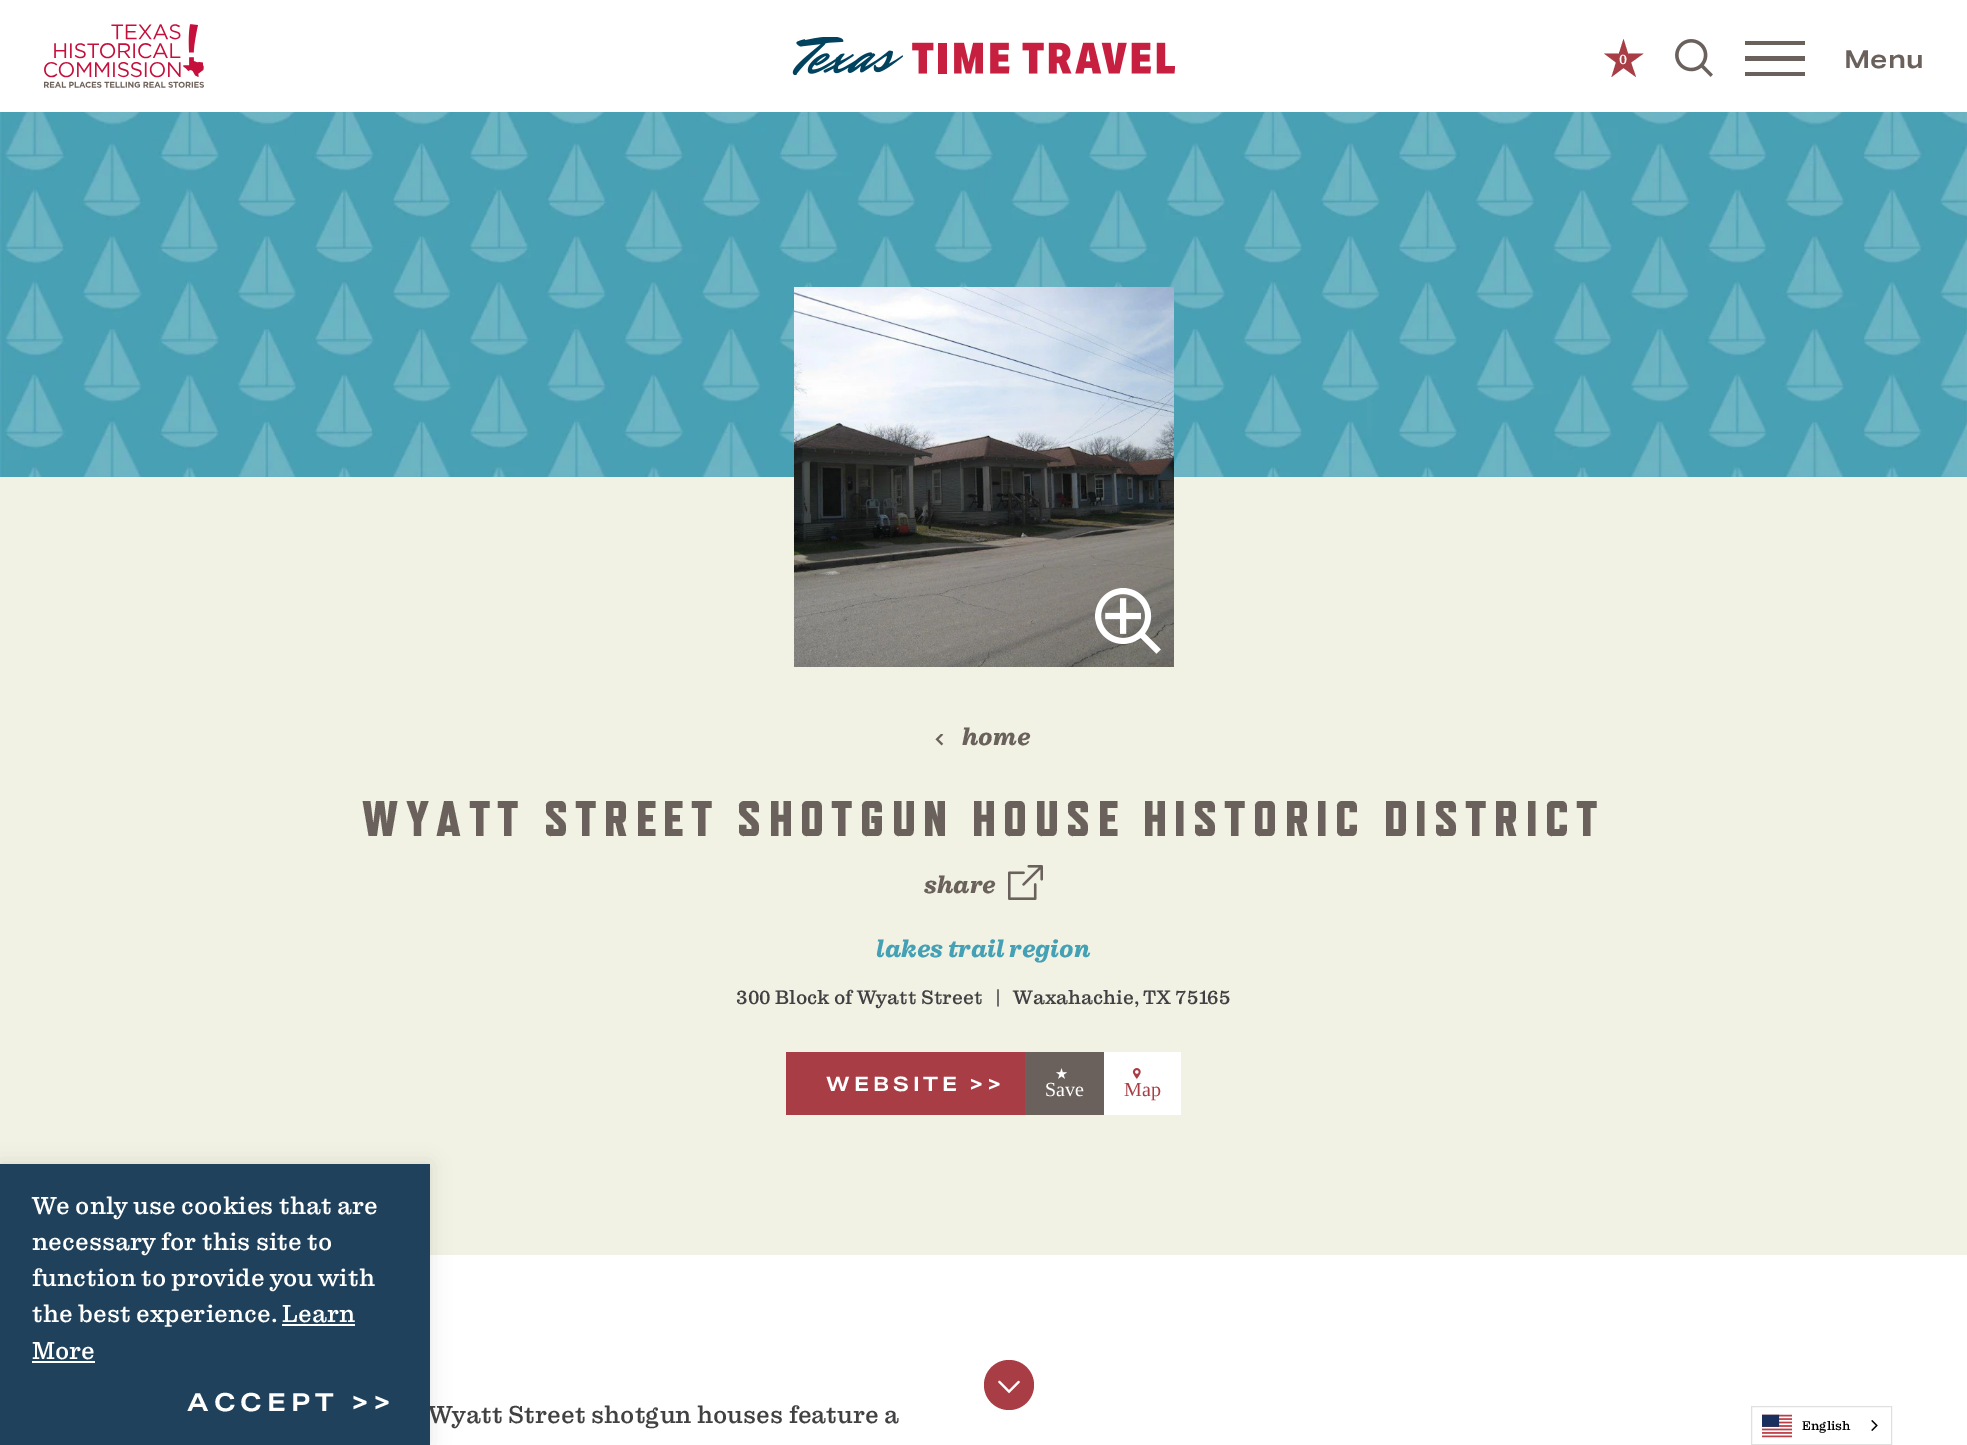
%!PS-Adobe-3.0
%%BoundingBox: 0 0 1967 1445
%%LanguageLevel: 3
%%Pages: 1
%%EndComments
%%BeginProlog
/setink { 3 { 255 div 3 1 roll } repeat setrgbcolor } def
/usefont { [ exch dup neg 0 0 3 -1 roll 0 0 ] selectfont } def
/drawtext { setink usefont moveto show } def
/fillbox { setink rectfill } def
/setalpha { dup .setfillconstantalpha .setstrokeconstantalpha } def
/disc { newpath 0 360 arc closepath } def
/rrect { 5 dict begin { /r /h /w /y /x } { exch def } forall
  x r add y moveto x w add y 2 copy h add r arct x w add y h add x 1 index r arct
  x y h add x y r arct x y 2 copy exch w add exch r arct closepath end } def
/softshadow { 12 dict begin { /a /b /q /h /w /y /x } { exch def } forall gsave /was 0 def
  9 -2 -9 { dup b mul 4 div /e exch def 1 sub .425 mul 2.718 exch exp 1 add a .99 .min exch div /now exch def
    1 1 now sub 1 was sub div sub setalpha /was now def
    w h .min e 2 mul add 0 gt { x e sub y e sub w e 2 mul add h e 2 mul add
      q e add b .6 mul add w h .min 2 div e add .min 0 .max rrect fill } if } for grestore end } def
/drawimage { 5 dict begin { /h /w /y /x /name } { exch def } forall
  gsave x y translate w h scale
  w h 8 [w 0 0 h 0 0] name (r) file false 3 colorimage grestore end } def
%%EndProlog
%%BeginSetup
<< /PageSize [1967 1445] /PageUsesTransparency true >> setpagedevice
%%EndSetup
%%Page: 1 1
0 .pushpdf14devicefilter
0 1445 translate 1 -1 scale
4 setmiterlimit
0 0 1967 1445 255 255 255 fillbox
(assets/img1.rgb) 44 24 160 64 drawimage
(assets/img2.rgb) 792 37 383 38 drawimage
169 61 69 setink
1623.5 39 moveto 1619 53.5 lineto 1604 53.5 lineto 1616 62.5 lineto 1611.5 77 lineto 1623.5 68 lineto 1636 77 lineto 1631 62.5 lineto 1643.5 53.5 lineto 1628 53.5 lineto closepath fill
1619 52 1 2 169 61 69 fillbox
(0) 1619 64 /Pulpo-Regular 14 255 255 255 drawtext
(assets/img3.rgb) 1675 39 38 38 drawimage
106 97 92 setink
1805 72 moveto 1745 72 lineto 1745 76 lineto 1805 76 lineto closepath 1805 56 moveto 1745 56 lineto 1745 61 lineto 1805 61 lineto closepath 1805 41 moveto 1745 41 lineto 1745 45 lineto 1805 45 lineto closepath eofill
(Menu) 1844 68 /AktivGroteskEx-Bold 25 106 97 92 drawtext
0 477 1967 778 241 242 227 fillbox
0 0 0 setink
0 1164 430 281 0 10 0.1 softshadow
(Wyatt Street shotgun houses feature a) 428 1423 /Pulpo-Regular 25 65 64 66 drawtext
0 1164 430 281 31 65 91 fillbox
(We only use cookies that are) 32 1214 /Pulpo-Regular 25 255 255 255 drawtext
(necessary for this site to) 32 1250 /Pulpo-Regular 25 255 255 255 drawtext
(function to provide you with) 32 1286 /Pulpo-Regular 25 255 255 255 drawtext
(the best experience. Learn) 32 1322 /Pulpo-Regular 25 255 255 255 drawtext
(More) 32 1359 /Pulpo-Regular 25 255 255 255 drawtext
282 1324 73 2 255 255 255 fillbox
32 1361 63 2 255 255 255 fillbox
/AktivGroteskEx-Bold 25 usefont
187 1411 moveto 5 0 (ACCEPT >>) ashow
(assets/img4.rgb) 0 112 1967 365 drawimage
(assets/img5.rgb) 794 287 380 380 drawimage
(assets/img6.rgb) 1095 588 66 66 drawimage
(assets/img7.rgb) 935 734 9 12 drawimage
(home) 962 745 /Pulpo-BoldItalic 25 106 97 92 drawtext
/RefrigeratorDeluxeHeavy-Black 50 usefont
362 836 moveto 7.5 0 (WYATT STREET SHOTGUN HOUSE HISTORIC DISTRICT) ashow
(share) 924 893 /Pulpo-BoldItalic 25 106 97 92 drawtext
(assets/img8.rgb) 1008 865 35 35 drawimage
(lakes trail region) 876 957 /Pulpo-BoldItalic 25 68 160 181 drawtext
(300 Block of Wyatt Street) 736 1004 /Pulpo-Regular 20 65 64 66 drawtext
(|) 995 1004 /Pulpo-Regular 20 65 64 66 drawtext
(Waxahachie, TX 75165) 1013 1004 /Pulpo-Regular 20 65 64 66 drawtext
786 1052 239 63 169 61 69 fillbox
/AktivGroteskEx-Bold 20 usefont
255 255 255 setink
826 1091 moveto 4 0 (WEBSITE) ashow
969 1091 moveto 4 0 (>>) ashow
1025 1052 79 63 106 97 92 fillbox
(assets/img9.rgb) 1056 1068 11 11 drawimage
(Save) 1045 1096 /LiberationSerif-Regular 20 255 255 255 drawtext
1104 1052 77 63 255 255 255 fillbox
(assets/img10.rgb) 1132 1068 9 11 drawimage
(Map) 1124 1096 /LiberationSerif-Regular 20 169 61 69 drawtext
1009 1385 25 disc fill
(assets/img11.rgb) 998 1380 22 14 drawimage
224 224 224 setink
1751.5 1406.5 140 38 rectstroke
(assets/img12.rgb) 1762 1414 30 24 drawimage
(English) 1802 1430 /Pulpo-Regular 13 0 0 0 drawtext
(assets/img13.rgb) 1871 1420 7 11 drawimage
.poppdf14devicefilter showpage
%%EOF
